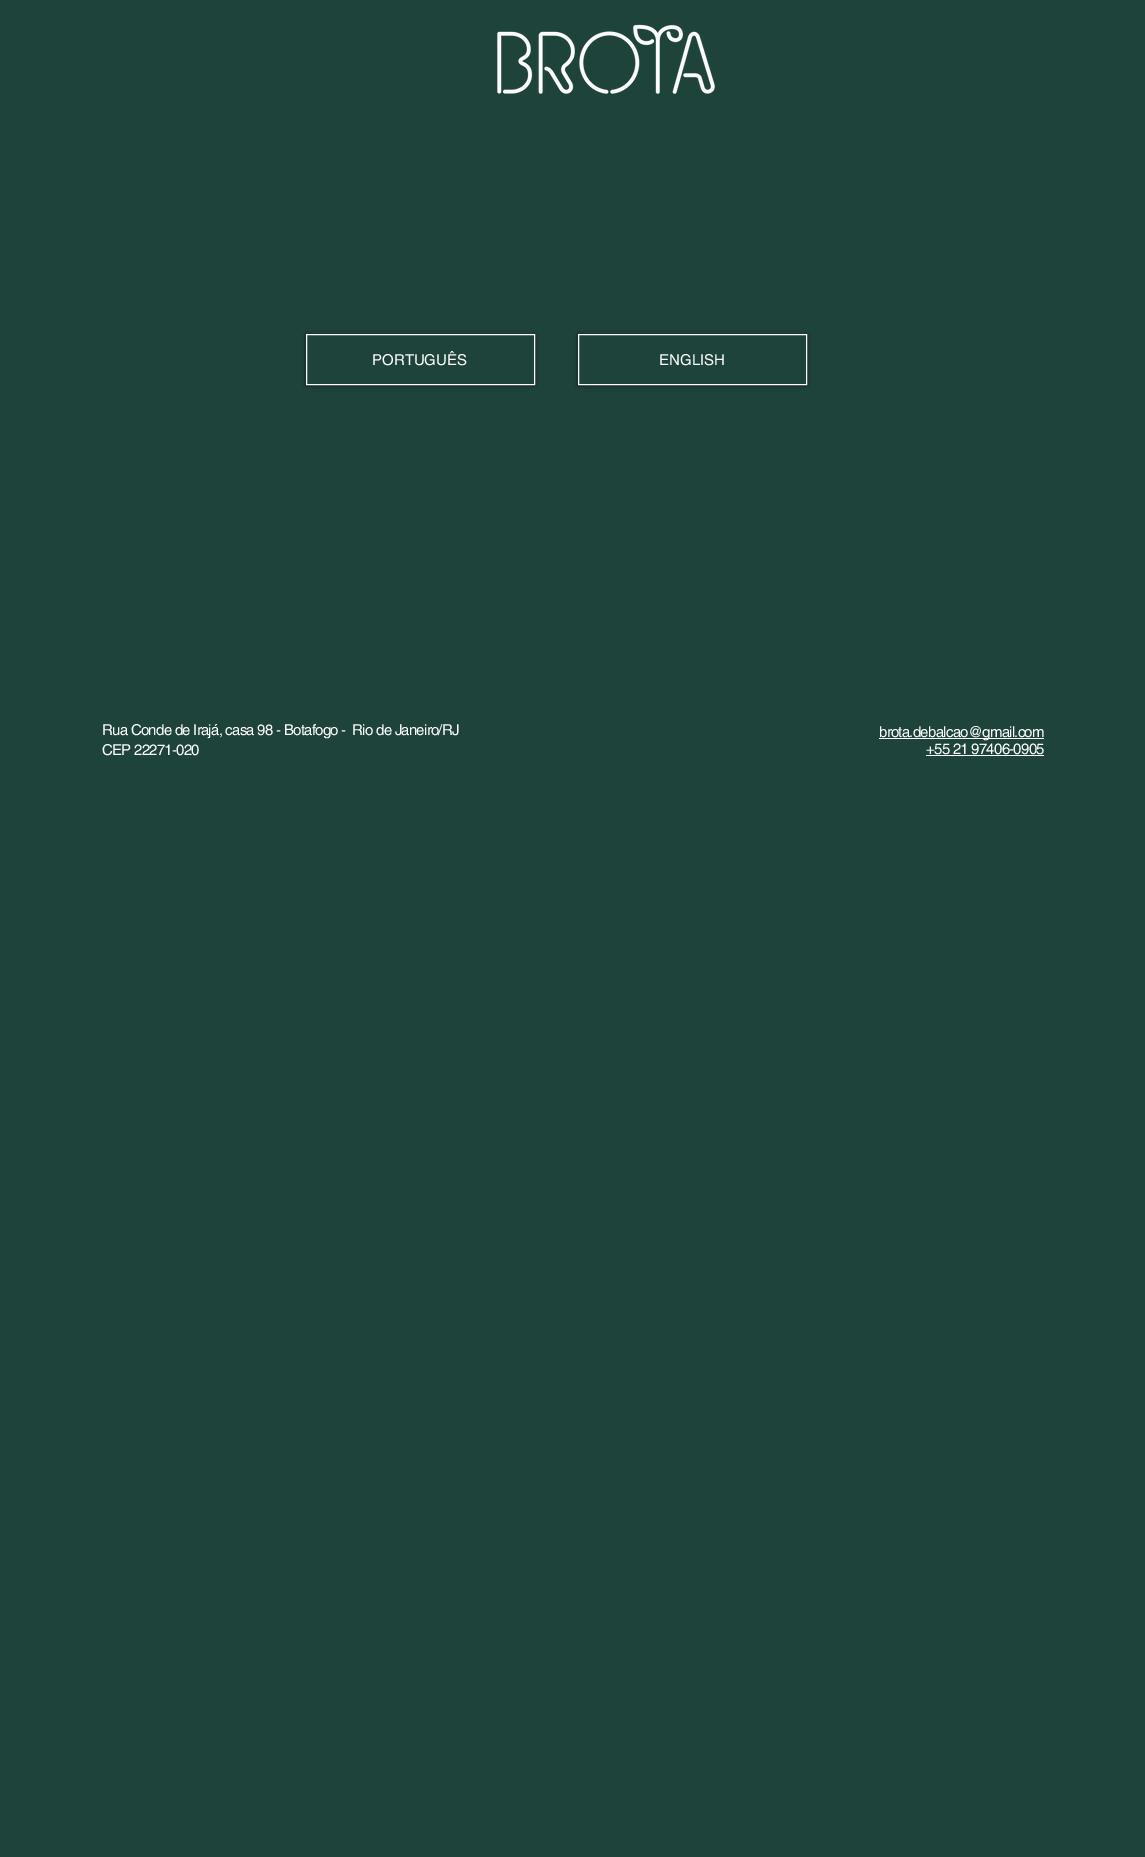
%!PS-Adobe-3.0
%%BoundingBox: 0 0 1145 1857
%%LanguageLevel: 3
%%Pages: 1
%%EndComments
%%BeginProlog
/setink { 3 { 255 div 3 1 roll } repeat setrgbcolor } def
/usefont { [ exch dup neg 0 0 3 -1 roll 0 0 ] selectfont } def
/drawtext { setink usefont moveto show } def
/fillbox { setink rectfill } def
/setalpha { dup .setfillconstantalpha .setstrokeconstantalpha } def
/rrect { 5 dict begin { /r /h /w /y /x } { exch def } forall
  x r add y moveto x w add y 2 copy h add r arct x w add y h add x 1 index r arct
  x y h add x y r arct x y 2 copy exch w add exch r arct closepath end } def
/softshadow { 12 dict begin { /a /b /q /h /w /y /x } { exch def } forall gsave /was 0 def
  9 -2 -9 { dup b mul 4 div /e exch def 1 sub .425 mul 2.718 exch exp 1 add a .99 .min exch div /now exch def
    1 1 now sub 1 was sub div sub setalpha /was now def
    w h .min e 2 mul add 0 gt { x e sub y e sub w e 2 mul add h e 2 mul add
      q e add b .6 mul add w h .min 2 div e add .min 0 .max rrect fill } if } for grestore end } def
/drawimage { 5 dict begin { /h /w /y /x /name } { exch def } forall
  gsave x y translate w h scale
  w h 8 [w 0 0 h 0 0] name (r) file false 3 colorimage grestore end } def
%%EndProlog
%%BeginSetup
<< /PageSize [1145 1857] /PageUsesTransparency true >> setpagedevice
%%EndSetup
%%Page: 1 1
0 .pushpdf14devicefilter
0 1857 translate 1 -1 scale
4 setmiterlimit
0 0 1145 1857 30 67 59 fillbox
(assets/img1.rgb) 497 24 218 70 drawimage
gsave
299 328 moveto 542 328 lineto 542 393 lineto 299 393 lineto closepath 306 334 moveto 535 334 lineto 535 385 lineto 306 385 lineto closepath eoclip newpath
0 0 0 setink
306 335 229 51 0 2 0.6 softshadow
grestore
255 255 255 setink
306.5 334.5 228 50 rectstroke
(PORTUGUÊS) 372 365 /helvetica-Regular 15 255 255 255 drawtext
gsave
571 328 moveto 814 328 lineto 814 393 lineto 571 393 lineto closepath 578 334 moveto 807 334 lineto 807 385 lineto 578 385 lineto closepath eoclip newpath
0 0 0 setink
578 335 229 51 0 2 0.6 softshadow
grestore
578.5 334.5 228 50 rectstroke
(ENGLISH) 659 365 /helvetica-Regular 15 255 255 255 drawtext
102 735 moveto -0.75 0 (Rua Conde de Irajá, casa 98 - Botafogo -  Rio de Janeiro/RJ) ashow
102 755 moveto -0.75 0 (CEP 22271-020) ashow
879 738 165 1 255 255 255 fillbox
879 737 moveto -0.75 0 (brota.debalcao@gmail.com) ashow
926 754 moveto -0.75 0 (+55 21 97406-0905) ashow
926 755 118 1 255 255 255 fillbox
.poppdf14devicefilter showpage
%%EOF
